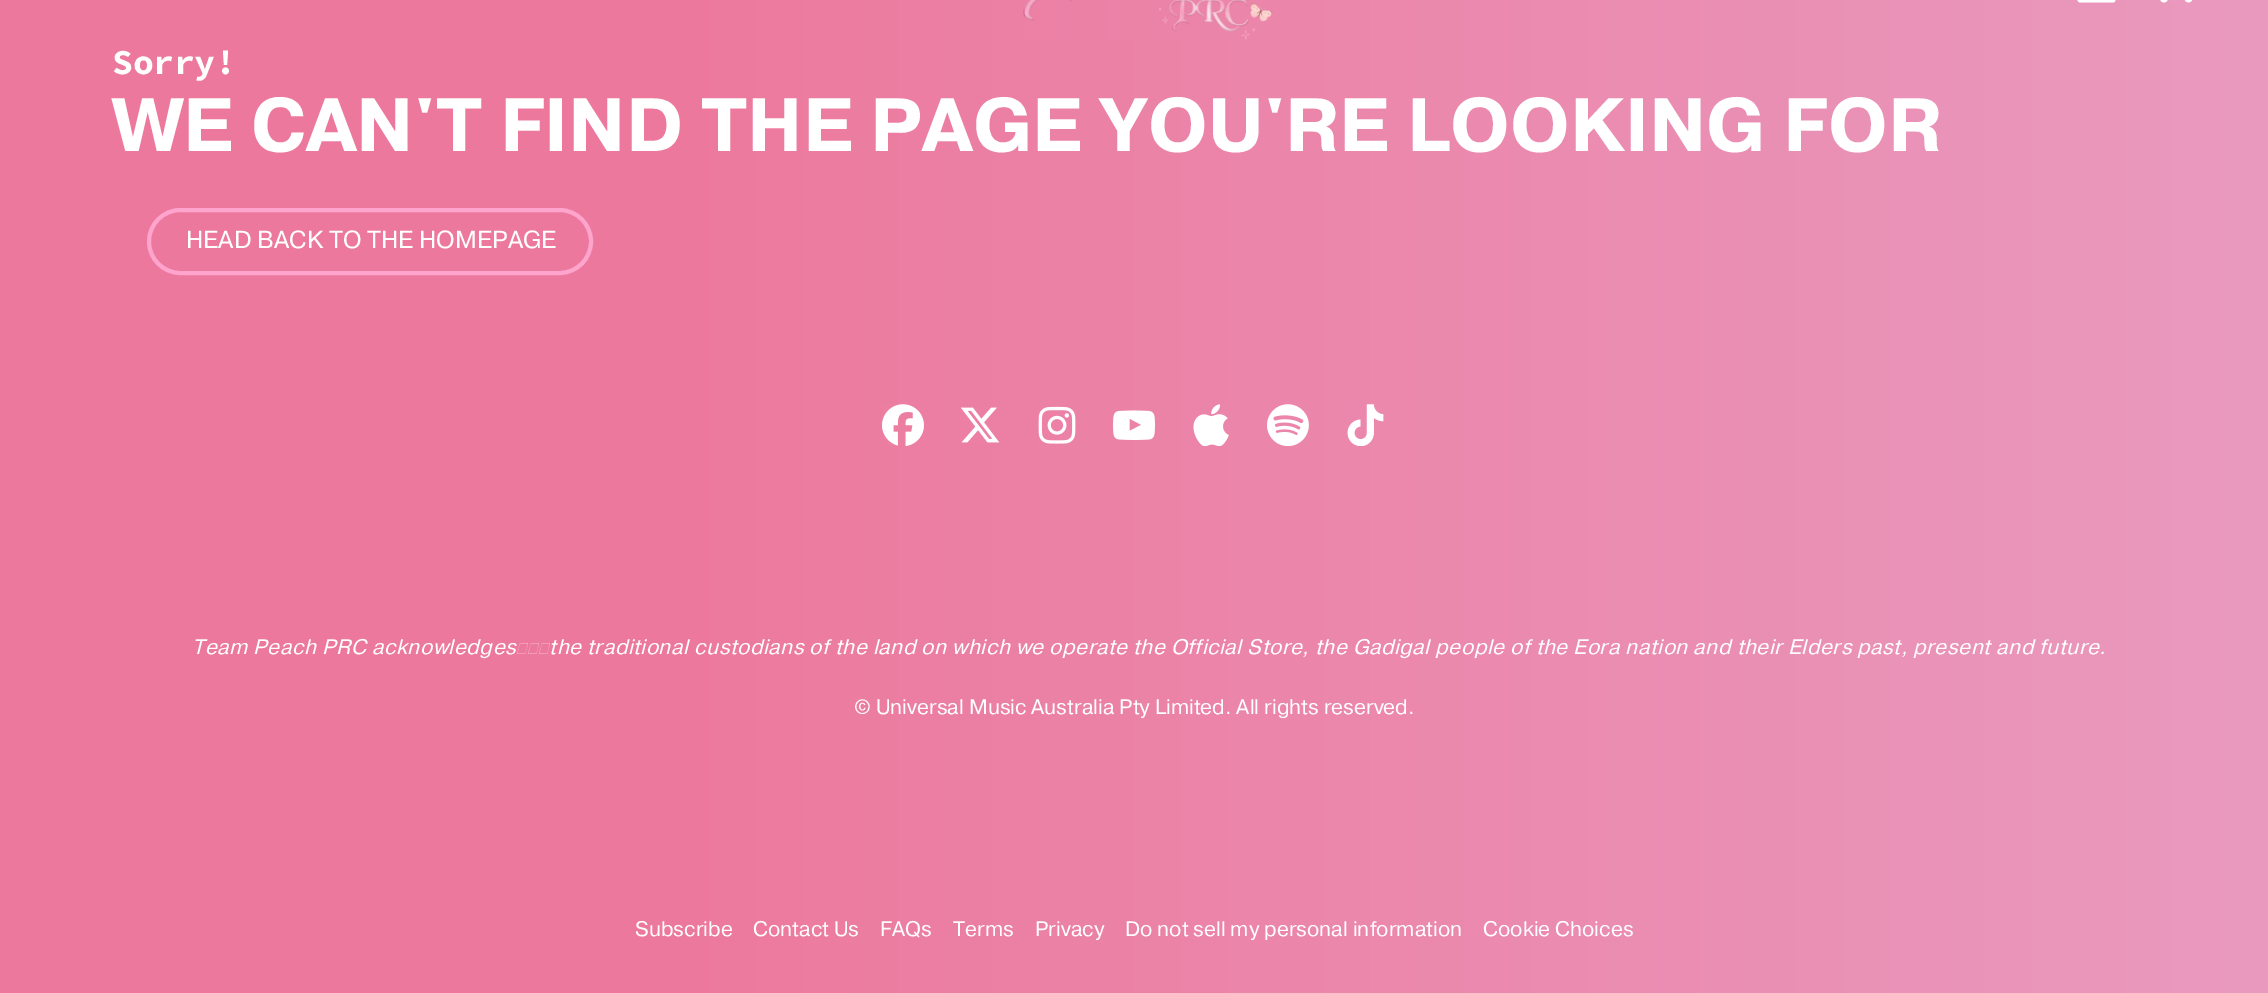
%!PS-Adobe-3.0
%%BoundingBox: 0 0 2268 993
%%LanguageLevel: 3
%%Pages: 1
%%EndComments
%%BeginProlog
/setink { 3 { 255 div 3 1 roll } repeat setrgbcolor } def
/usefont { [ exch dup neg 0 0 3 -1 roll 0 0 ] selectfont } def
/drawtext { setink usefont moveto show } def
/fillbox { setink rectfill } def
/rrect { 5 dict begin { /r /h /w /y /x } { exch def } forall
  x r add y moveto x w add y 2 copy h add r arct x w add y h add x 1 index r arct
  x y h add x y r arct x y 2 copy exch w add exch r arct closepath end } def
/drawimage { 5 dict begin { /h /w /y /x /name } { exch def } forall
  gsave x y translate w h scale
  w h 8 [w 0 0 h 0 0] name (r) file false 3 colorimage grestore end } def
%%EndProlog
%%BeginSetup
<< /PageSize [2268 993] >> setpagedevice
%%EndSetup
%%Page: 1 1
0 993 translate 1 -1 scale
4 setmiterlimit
0 0 2268 993 255 255 255 fillbox
gsave 0 0 moveto 2268 0 lineto 2268 993 lineto 0 993 lineto closepath clip newpath
<< /ShadingType 2 /ColorSpace /DeviceRGB /Coords [0 482 2268 482] /Extend [true true] /Function << /FunctionType 3 /Domain [0 1] /Functions [<< /FunctionType 2 /Domain [0 1] /C0 [0.925 0.475 0.616] /C1 [0.925 0.475 0.616] /N 1 >> << /FunctionType 2 /Domain [0 1] /C0 [0.925 0.475 0.616] /C1 [0.918 0.604 0.749] /N 1 >>] /Bounds [0.29] /Encode [0 1 0 1] >> >> shfill grestore
(assets/img1.rgb) 1023 0 250 40 drawimage
(assets/img2.rgb) 2077 0 39 3 drawimage
(assets/img3.rgb) 2160 0 33 3 drawimage
/SourceCodePro-Bold 35 usefont
112 74 moveto -0.5 0 (Sorry!) ashow
(WE CAN'T FIND THE PAGE YOU'RE LOOKING FOR) 112 151 /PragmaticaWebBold-Bold 75.25 255 255 255 drawtext
254 164 205 setink
4 setlinewidth
149 210 442 63 31.5 rrect stroke
(HEAD BACK TO THE HOMEPAGE) 186 248 /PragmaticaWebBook-Regular 24.5 255 255 255 drawtext
(assets/img4.rgb) 882 404 42 42 drawimage
(assets/img5.rgb) 960 407 40 36 drawimage
(assets/img6.rgb) 1038 406 38 38 drawimage
(assets/img7.rgb) 1113 410 42 30 drawimage
(assets/img8.rgb) 1193 404 36 42 drawimage
(assets/img9.rgb) 1267 404 42 42 drawimage
(assets/img10.rgb) 1347 404 37 42 drawimage
/PragmaticaWebBook-Italic 21 usefont
192 654 moveto 0.53 0 (Team Peach PRC acknowledges the traditional custodians of the land on which we operate the Official Store, the Gadigal people of the Eora nation and their Elders past, present and future.) ashow
(© Universal Music Australia Pty Limited. All rights reserved.) 854 714 /PragmaticaWebBook-Regular 21 255 255 255 drawtext
(Subscribe) 635 936 /PragmaticaWebBook-Regular 21 255 255 255 drawtext
(Contact Us) 753 936 /PragmaticaWebBook-Regular 21 255 255 255 drawtext
(FAQs) 880 936 /PragmaticaWebBook-Regular 21 255 255 255 drawtext
(Terms) 953 936 /PragmaticaWebBook-Regular 21 255 255 255 drawtext
(Privacy) 1035 936 /PragmaticaWebBook-Regular 21 255 255 255 drawtext
(Do not sell my personal information) 1125 936 /PragmaticaWebBook-Regular 21 255 255 255 drawtext
(Cookie Choices) 1483 936 /PragmaticaWebBook-Regular 21 255 255 255 drawtext
showpage
%%EOF
